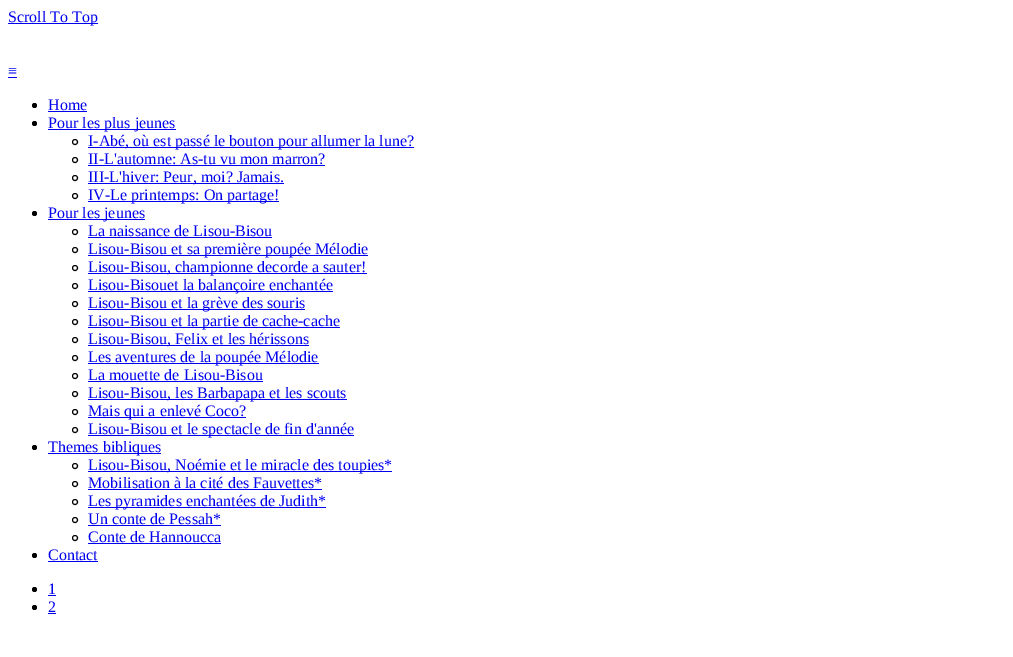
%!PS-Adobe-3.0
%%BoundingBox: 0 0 1013 657
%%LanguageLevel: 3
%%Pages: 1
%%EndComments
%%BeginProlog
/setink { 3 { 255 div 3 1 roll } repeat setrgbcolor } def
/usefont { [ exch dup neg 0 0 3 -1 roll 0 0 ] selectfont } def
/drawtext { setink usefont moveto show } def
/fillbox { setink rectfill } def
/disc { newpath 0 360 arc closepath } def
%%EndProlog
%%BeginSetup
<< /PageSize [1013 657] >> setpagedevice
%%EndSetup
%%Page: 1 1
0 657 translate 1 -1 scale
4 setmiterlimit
0 0 1013 657 255 255 255 fillbox
8 23 90 1 0 0 238 fillbox
(Scroll To Top) 8 22 /LiberationSerif-Regular 16 0 0 238 drawtext
(≡) 8 76 /LiberationSerif-Regular 16 0 0 238 drawtext
8 77 9 1 0 0 238 fillbox
0 0 0 setink
34.5 105.5 2.5 disc fill
(Home) 48 110 /LiberationSerif-Regular 16 0 0 238 drawtext
48 111 39 1 0 0 238 fillbox
0 0 0 setink
34.5 123.5 2.5 disc fill
48 129 128 1 0 0 238 fillbox
(Pour les plus jeunes) 48 128 /LiberationSerif-Regular 16 0 0 238 drawtext
0 0 0 setink
75 142 2.5 disc stroke
88 147 326 1 0 0 238 fillbox
(I-Abé, où est passé le bouton pour allumer la lune?) 88 146 /LiberationSerif-Regular 16 0 0 238 drawtext
0 0 0 setink
75 160 2.5 disc stroke
(II-L'automne: As-tu vu mon marron?) 88 164 /LiberationSerif-Regular 16 0 0 238 drawtext
88 165 237 1 0 0 238 fillbox
0 0 0 setink
75 178 2.5 disc stroke
88 183 196 1 0 0 238 fillbox
(III-L'hiver: Peur, moi? Jamais.) 88 182 /LiberationSerif-Regular 16 0 0 238 drawtext
0 0 0 setink
75 196 2.5 disc stroke
88 201 191 1 0 0 238 fillbox
(IV-Le printemps: On partage!) 88 200 /LiberationSerif-Regular 16 0 0 238 drawtext
0 0 0 setink
34.5 213.5 2.5 disc fill
48 219 97 1 0 0 238 fillbox
(Pour les jeunes) 48 218 /LiberationSerif-Regular 16 0 0 238 drawtext
0 0 0 setink
75 232 2.5 disc stroke
(La naissance de Lisou-Bisou) 88 236 /LiberationSerif-Regular 16 0 0 238 drawtext
88 237 184 1 0 0 238 fillbox
0 0 0 setink
75 250 2.5 disc stroke
88 255 280 1 0 0 238 fillbox
(Lisou-Bisou et sa première poupée Mélodie) 88 254 /LiberationSerif-Regular 16 0 0 238 drawtext
0 0 0 setink
75 268 2.5 disc stroke
88 273 279 1 0 0 238 fillbox
(Lisou-Bisou, championne decorde a sauter!) 88 272 /LiberationSerif-Regular 16 0 0 238 drawtext
0 0 0 setink
75 286 2.5 disc stroke
88 291 245 1 0 0 238 fillbox
(Lisou-Bisouet la balançoire enchantée) 88 290 /LiberationSerif-Regular 16 0 0 238 drawtext
0 0 0 setink
75 304 2.5 disc stroke
88 309 217 1 0 0 238 fillbox
(Lisou-Bisou et la grève des souris) 88 308 /LiberationSerif-Regular 16 0 0 238 drawtext
0 0 0 setink
75 322 2.5 disc stroke
88 327 252 1 0 0 238 fillbox
(Lisou-Bisou et la partie de cache-cache) 88 326 /LiberationSerif-Regular 16 0 0 238 drawtext
0 0 0 setink
75 340 2.5 disc stroke
88 345 221 1 0 0 238 fillbox
(Lisou-Bisou, Felix et les hérissons) 88 344 /LiberationSerif-Regular 16 0 0 238 drawtext
0 0 0 setink
75 358 2.5 disc stroke
88 363 231 1 0 0 238 fillbox
(Les aventures de la poupée Mélodie) 88 362 /LiberationSerif-Regular 16 0 0 238 drawtext
0 0 0 setink
75 376 2.5 disc stroke
(La mouette de Lisou-Bisou) 88 380 /LiberationSerif-Regular 16 0 0 238 drawtext
88 381 175 1 0 0 238 fillbox
0 0 0 setink
75 394 2.5 disc stroke
88 399 259 1 0 0 238 fillbox
(Lisou-Bisou, les Barbapapa et les scouts) 88 398 /LiberationSerif-Regular 16 0 0 238 drawtext
0 0 0 setink
75 412 2.5 disc stroke
88 417 158 1 0 0 238 fillbox
(Mais qui a enlevé Coco?) 88 416 /LiberationSerif-Regular 16 0 0 238 drawtext
0 0 0 setink
75 430 2.5 disc stroke
88 435 266 1 0 0 238 fillbox
(Lisou-Bisou et le spectacle de fin d'année) 88 434 /LiberationSerif-Regular 16 0 0 238 drawtext
0 0 0 setink
34.5 447.5 2.5 disc fill
48 453 113 1 0 0 238 fillbox
(Themes bibliques) 48 452 /LiberationSerif-Regular 16 0 0 238 drawtext
0 0 0 setink
75 466 2.5 disc stroke
88 471 304 1 0 0 238 fillbox
(Lisou-Bisou, Noémie et le miracle des toupies*) 88 470 /LiberationSerif-Regular 16 0 0 238 drawtext
0 0 0 setink
75 484 2.5 disc stroke
(Mobilisation à la cité des Fauvettes*) 88 488 /LiberationSerif-Regular 16 0 0 238 drawtext
88 489 234 1 0 0 238 fillbox
0 0 0 setink
75 502 2.5 disc stroke
88 507 238 1 0 0 238 fillbox
(Les pyramides enchantées de Judith*) 88 506 /LiberationSerif-Regular 16 0 0 238 drawtext
0 0 0 setink
75 520 2.5 disc stroke
(Un conte de Pessah*) 88 524 /LiberationSerif-Regular 16 0 0 238 drawtext
88 525 133 1 0 0 238 fillbox
0 0 0 setink
75 538 2.5 disc stroke
(Conte de Hannoucca) 88 542 /LiberationSerif-Regular 16 0 0 238 drawtext
88 543 133 1 0 0 238 fillbox
0 0 0 setink
34.5 555.5 2.5 disc fill
(Contact) 48 560 /LiberationSerif-Regular 16 0 0 238 drawtext
48 561 50 1 0 0 238 fillbox
0 0 0 setink
34.5 589.5 2.5 disc fill
(1) 48 594 /LiberationSerif-Regular 16 0 0 238 drawtext
48 595 8 1 0 0 238 fillbox
0 0 0 setink
34.5 607.5 2.5 disc fill
(2) 48 612 /LiberationSerif-Regular 16 0 0 238 drawtext
48 613 8 1 0 0 238 fillbox
showpage
%%EOF
